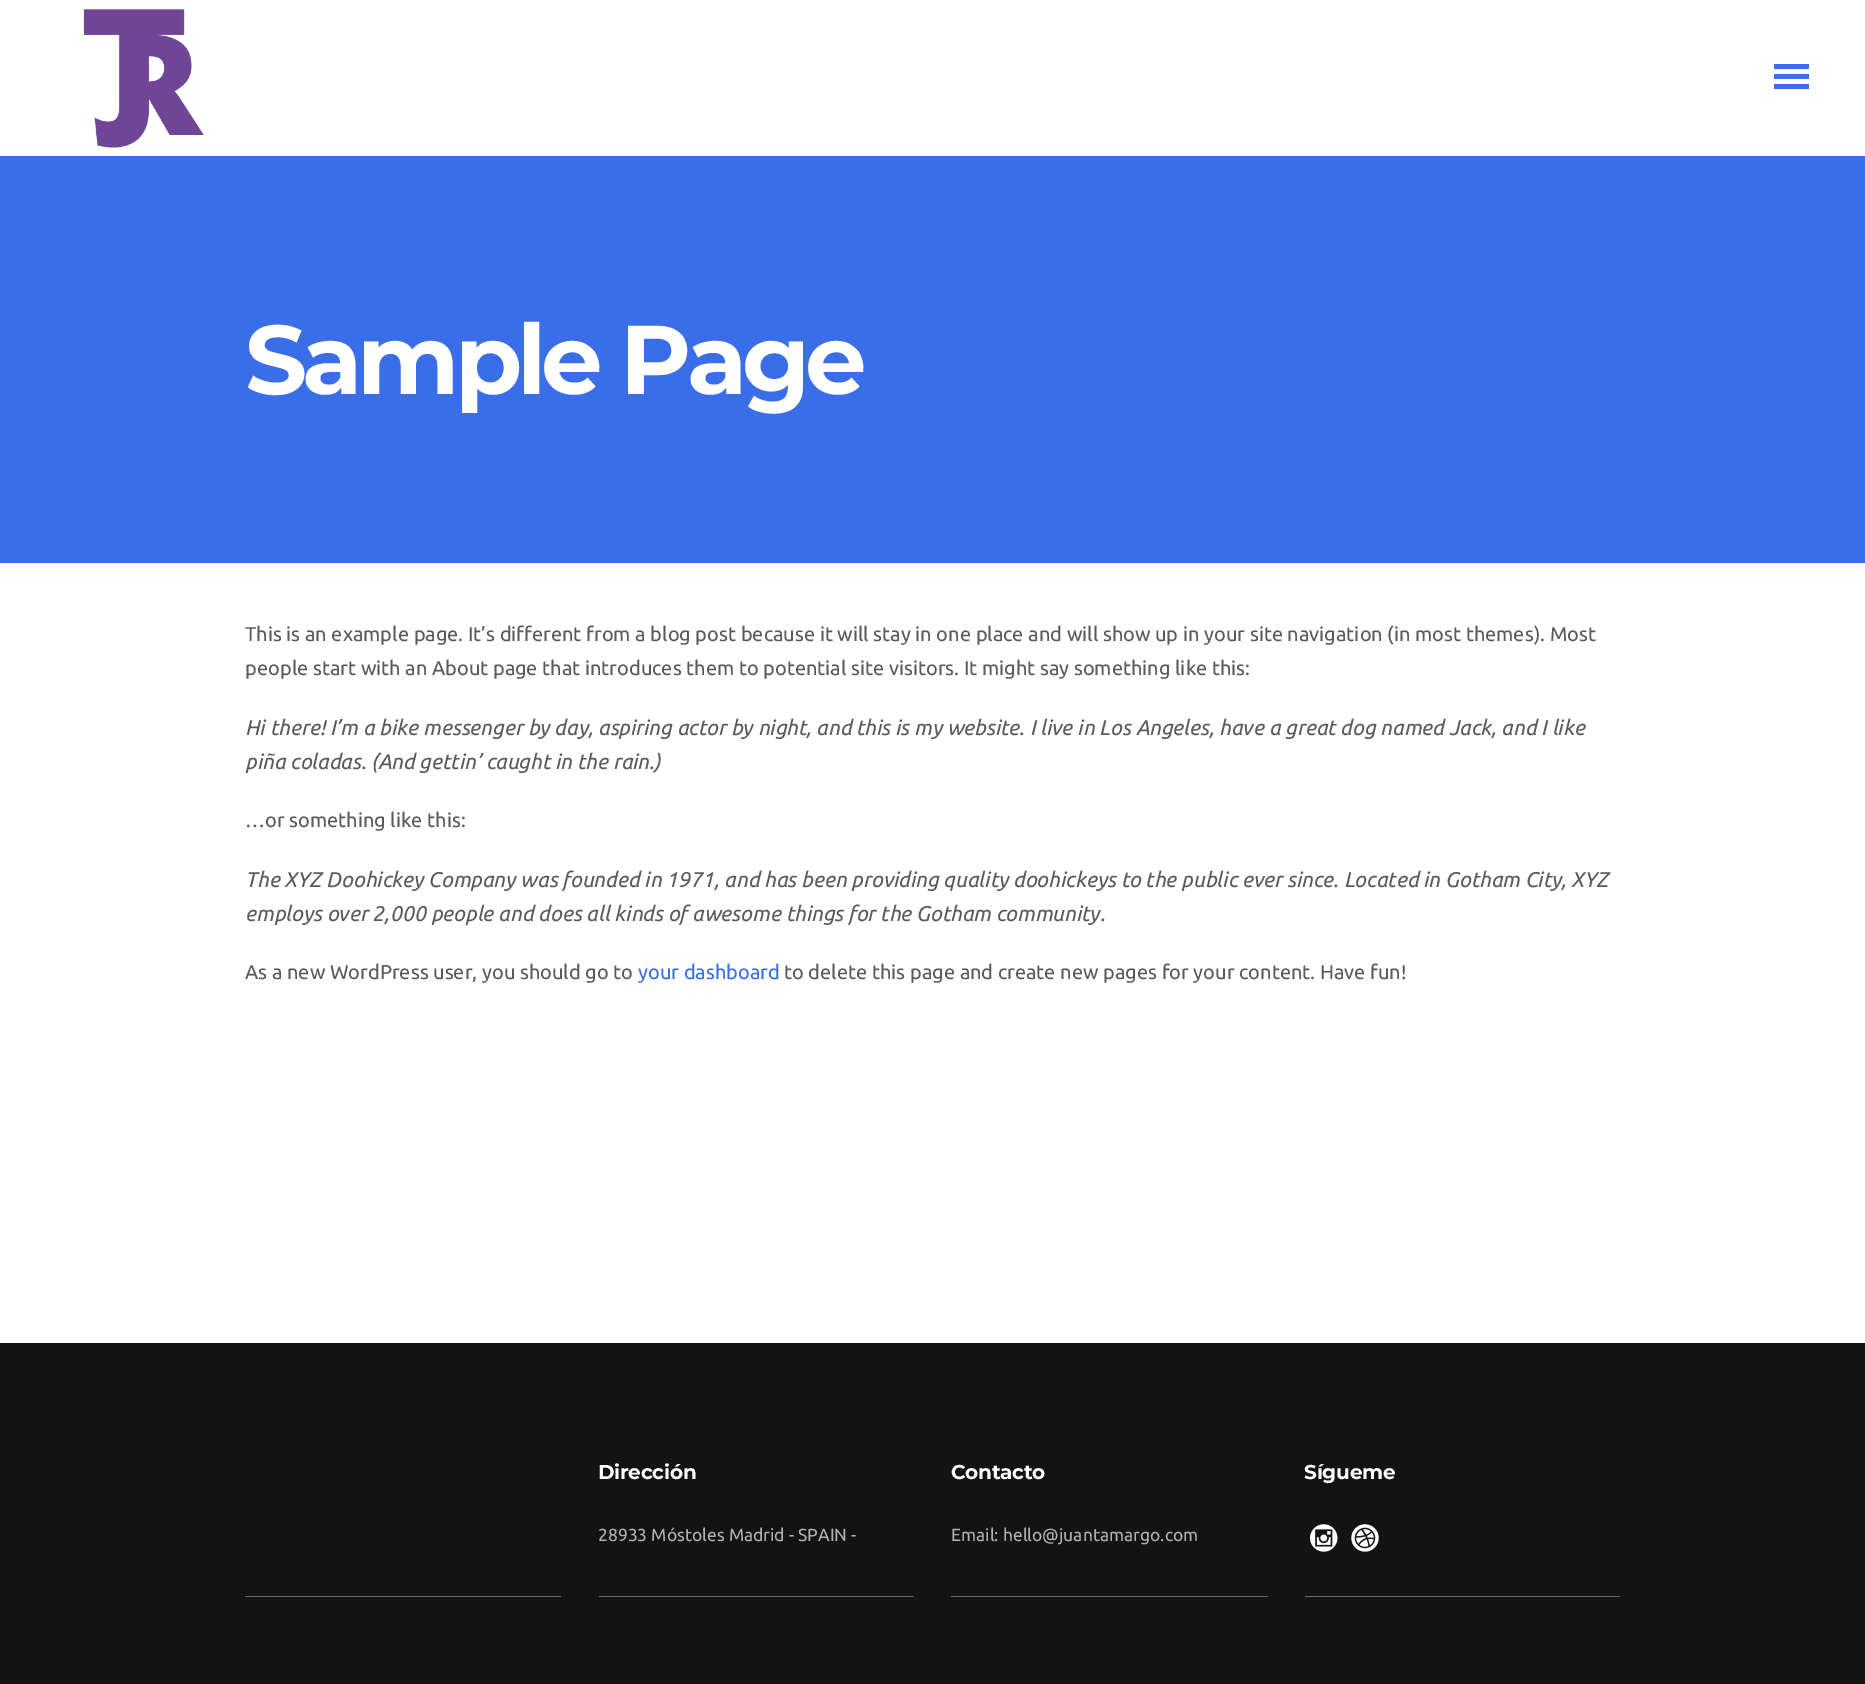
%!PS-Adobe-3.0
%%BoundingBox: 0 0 1865 1684
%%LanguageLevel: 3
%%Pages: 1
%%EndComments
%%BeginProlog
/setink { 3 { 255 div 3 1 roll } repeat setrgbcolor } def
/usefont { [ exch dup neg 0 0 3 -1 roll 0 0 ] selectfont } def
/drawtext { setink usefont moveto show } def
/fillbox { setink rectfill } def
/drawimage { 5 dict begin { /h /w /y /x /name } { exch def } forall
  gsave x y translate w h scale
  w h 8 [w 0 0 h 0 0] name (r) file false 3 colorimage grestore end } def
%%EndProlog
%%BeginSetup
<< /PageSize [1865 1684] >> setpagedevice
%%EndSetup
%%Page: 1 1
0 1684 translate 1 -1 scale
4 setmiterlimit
0 0 1865 1684 255 255 255 fillbox
(assets/img1.rgb) 83 9 121 139 drawimage
1774 64 35 5 58 110 232 fillbox
1774 74 35 5 58 110 232 fillbox
1774 84 35 5 58 110 232 fillbox
0 156 1865 407 58 110 232 fillbox
/Montserrat-Bold 97.5 usefont
255 255 255 setink
245 394 moveto -5 0 (Sample Page) ashow
(This is an example page. It’s different from a blog post because it will stay in one place and will show up in your site navigation \(in most themes\). Most) 245 641 /Ubuntu-Regular 20 90 90 90 drawtext
(people start with an About page that introduces them to potential site visitors. It might say something like this:) 245 675 /Ubuntu-Regular 20 90 90 90 drawtext
(Hi there! I’m a bike messenger by day, aspiring actor by night, and this is my website. I live in Los Angeles, have a great dog named Jack, and I like) 245 735 /Ubuntu-Italic 21.25 90 90 90 drawtext
(piña coladas. \(And gettin’ caught in the rain.\)) 245 769 /Ubuntu-Italic 21.25 90 90 90 drawtext
(…or something like this:) 245 827 /Ubuntu-Regular 20 90 90 90 drawtext
(The XYZ Doohickey Company was founded in 1971, and has been providing quality doohickeys to the public ever since. Located in Gotham City, XYZ) 245 887 /Ubuntu-Italic 21.25 90 90 90 drawtext
(employs over 2,000 people and does all kinds of awesome things for the Gotham community.) 245 921 /Ubuntu-Italic 21.25 90 90 90 drawtext
(As a new WordPress user, you should go to) 245 979 /Ubuntu-Regular 20 90 90 90 drawtext
(your dashboard) 638 979 /Ubuntu-Regular 20 58 110 232 drawtext
(to delete this page and create new pages for your content. Have fun!) 784 979 /Ubuntu-Regular 20 90 90 90 drawtext
0 1343 1865 341 19 19 19 fillbox
599 1596 315 1 102 102 102 fillbox
/Montserrat-Bold 20 usefont
255 255 255 setink
598 1479 moveto -0.25 0 (Dirección) ashow
(28933 Móstoles Madrid - SPAIN -) 598 1541 /Ubuntu-Regular 17.5 177 177 177 drawtext
951 1596 317 1 102 102 102 fillbox
/Montserrat-Bold 20 usefont
255 255 255 setink
951 1479 moveto -0.25 0 (Contacto) ashow
(Email: hello@juantamargo.com) 951 1541 /Ubuntu-Regular 17.5 177 177 177 drawtext
1305 1596 315 1 102 102 102 fillbox
/Montserrat-Bold 20 usefont
255 255 255 setink
1304 1479 moveto -0.25 0 (Sígueme) ashow
(assets/img2.rgb) 1310 1524 28 28 drawimage
(assets/img3.rgb) 1351 1524 28 28 drawimage
245 1596 316 1 102 102 102 fillbox
showpage
%%EOF
